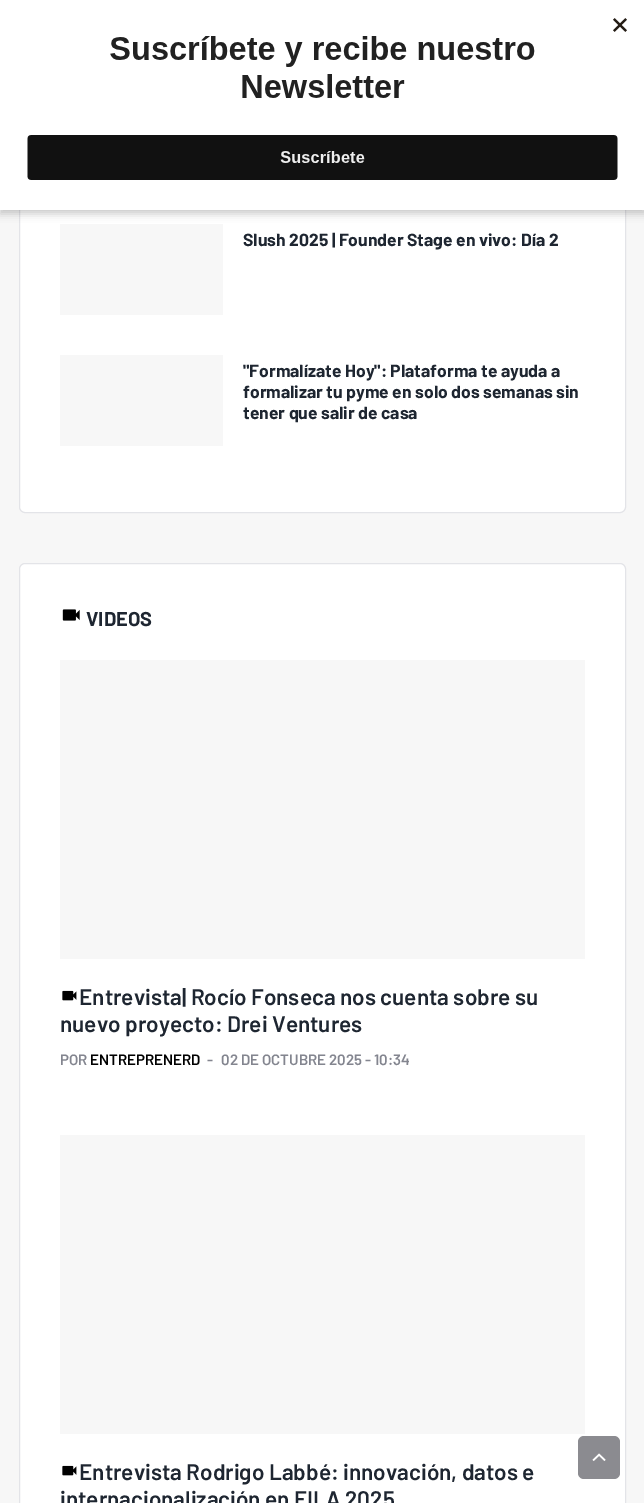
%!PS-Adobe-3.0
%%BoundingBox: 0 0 644 1503
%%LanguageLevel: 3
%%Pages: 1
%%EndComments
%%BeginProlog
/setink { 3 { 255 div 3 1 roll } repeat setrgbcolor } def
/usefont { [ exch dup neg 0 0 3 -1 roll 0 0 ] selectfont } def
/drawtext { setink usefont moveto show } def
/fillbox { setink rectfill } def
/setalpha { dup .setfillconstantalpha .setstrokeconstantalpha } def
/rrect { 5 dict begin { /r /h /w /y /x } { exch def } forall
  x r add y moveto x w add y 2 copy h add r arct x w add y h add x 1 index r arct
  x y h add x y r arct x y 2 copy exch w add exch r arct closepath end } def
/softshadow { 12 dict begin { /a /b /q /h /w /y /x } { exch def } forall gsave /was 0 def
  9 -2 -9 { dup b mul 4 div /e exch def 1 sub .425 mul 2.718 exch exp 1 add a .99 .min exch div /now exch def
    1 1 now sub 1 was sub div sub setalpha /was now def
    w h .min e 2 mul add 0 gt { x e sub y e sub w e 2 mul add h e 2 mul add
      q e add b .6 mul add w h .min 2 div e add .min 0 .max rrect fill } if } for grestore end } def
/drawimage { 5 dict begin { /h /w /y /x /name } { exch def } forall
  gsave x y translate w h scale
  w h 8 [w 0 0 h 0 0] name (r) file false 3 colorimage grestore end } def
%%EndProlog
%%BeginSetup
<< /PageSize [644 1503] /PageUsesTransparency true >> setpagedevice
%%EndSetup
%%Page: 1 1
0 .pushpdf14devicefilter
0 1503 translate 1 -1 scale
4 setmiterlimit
0 0 644 1503 247 247 247 fillbox
255 255 255 setink
19.5 -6.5 606 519 5.5 rrect gsave fill grestore
227 228 232 setink
stroke
60 224 163 91 247 247 247 fillbox
0 0 0 setink
0 4 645 210 0 4 0.2 softshadow
0 0 644 210 255 255 255 fillbox
(assets/img1.rgb) 27 18 600 162 drawimage
(Slush 2025 | Founder Stage en vivo: Día 2) 243 246 /Barlow-Bold 17.5 30 38 49 drawtext
60 355 163 91 247 247 247 fillbox
gsave
243 355 342 75 rectclip
("Formalízate Hoy": Plataforma te ayuda a) 243 377 /Barlow-Bold 17.5 30 38 49 drawtext
grestore
(formalizar tu pyme en solo dos semanas sin) 243 398 /Barlow-Bold 17.5 30 38 49 drawtext
(tener que salir de casa) 243 419 /Barlow-Bold 17.5 30 38 49 drawtext
255 255 255 setink
19.5 563.5 606 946 5.5 rrect gsave fill grestore
227 228 232 setink
stroke
(assets/img2.rgb) 62 609 18 12 drawimage
(VIDEOS) 86 626 /Barlow-Bold 20 30 38 49 drawtext
60 660 525 299 247 247 247 fillbox
(assets/img3.rgb) 62 990 15 11 drawimage
(Entrevista| Rocío Fonseca nos cuenta sobre su) 79 1005 /Barlow-SemiBold 22.5 30 38 49 drawtext
(nuevo proyecto: Drei Ventures) 60 1032 /Barlow-SemiBold 22.5 30 38 49 drawtext
(POR) 60 1065 /Barlow-SemiBold 15 131 133 143 drawtext
(ENTREPRENERD) 90 1065 /Barlow-SemiBold 15 0 0 0 drawtext
(-) 207 1065 /Barlow-SemiBold 15 131 133 143 drawtext
(02 DE OCTUBRE 2025 - 10:34) 221 1065 /Barlow-SemiBold 15 131 133 143 drawtext
60 1135 525 299 247 247 247 fillbox
(assets/img3.rgb) 62 1465 15 11 drawimage
(Entrevista Rodrigo Labbé: innovación, datos e) 79 1480 /Barlow-SemiBold 22.5 30 38 49 drawtext
(internacionalización en EILA 2025) 60 1507 /Barlow-SemiBold 22.5 30 38 49 drawtext
139 139 144 setink
578 1436 42 43 6 rrect fill
(assets/img4.rgb) 592 1453 14 8 drawimage
.poppdf14devicefilter showpage
%%EOF
